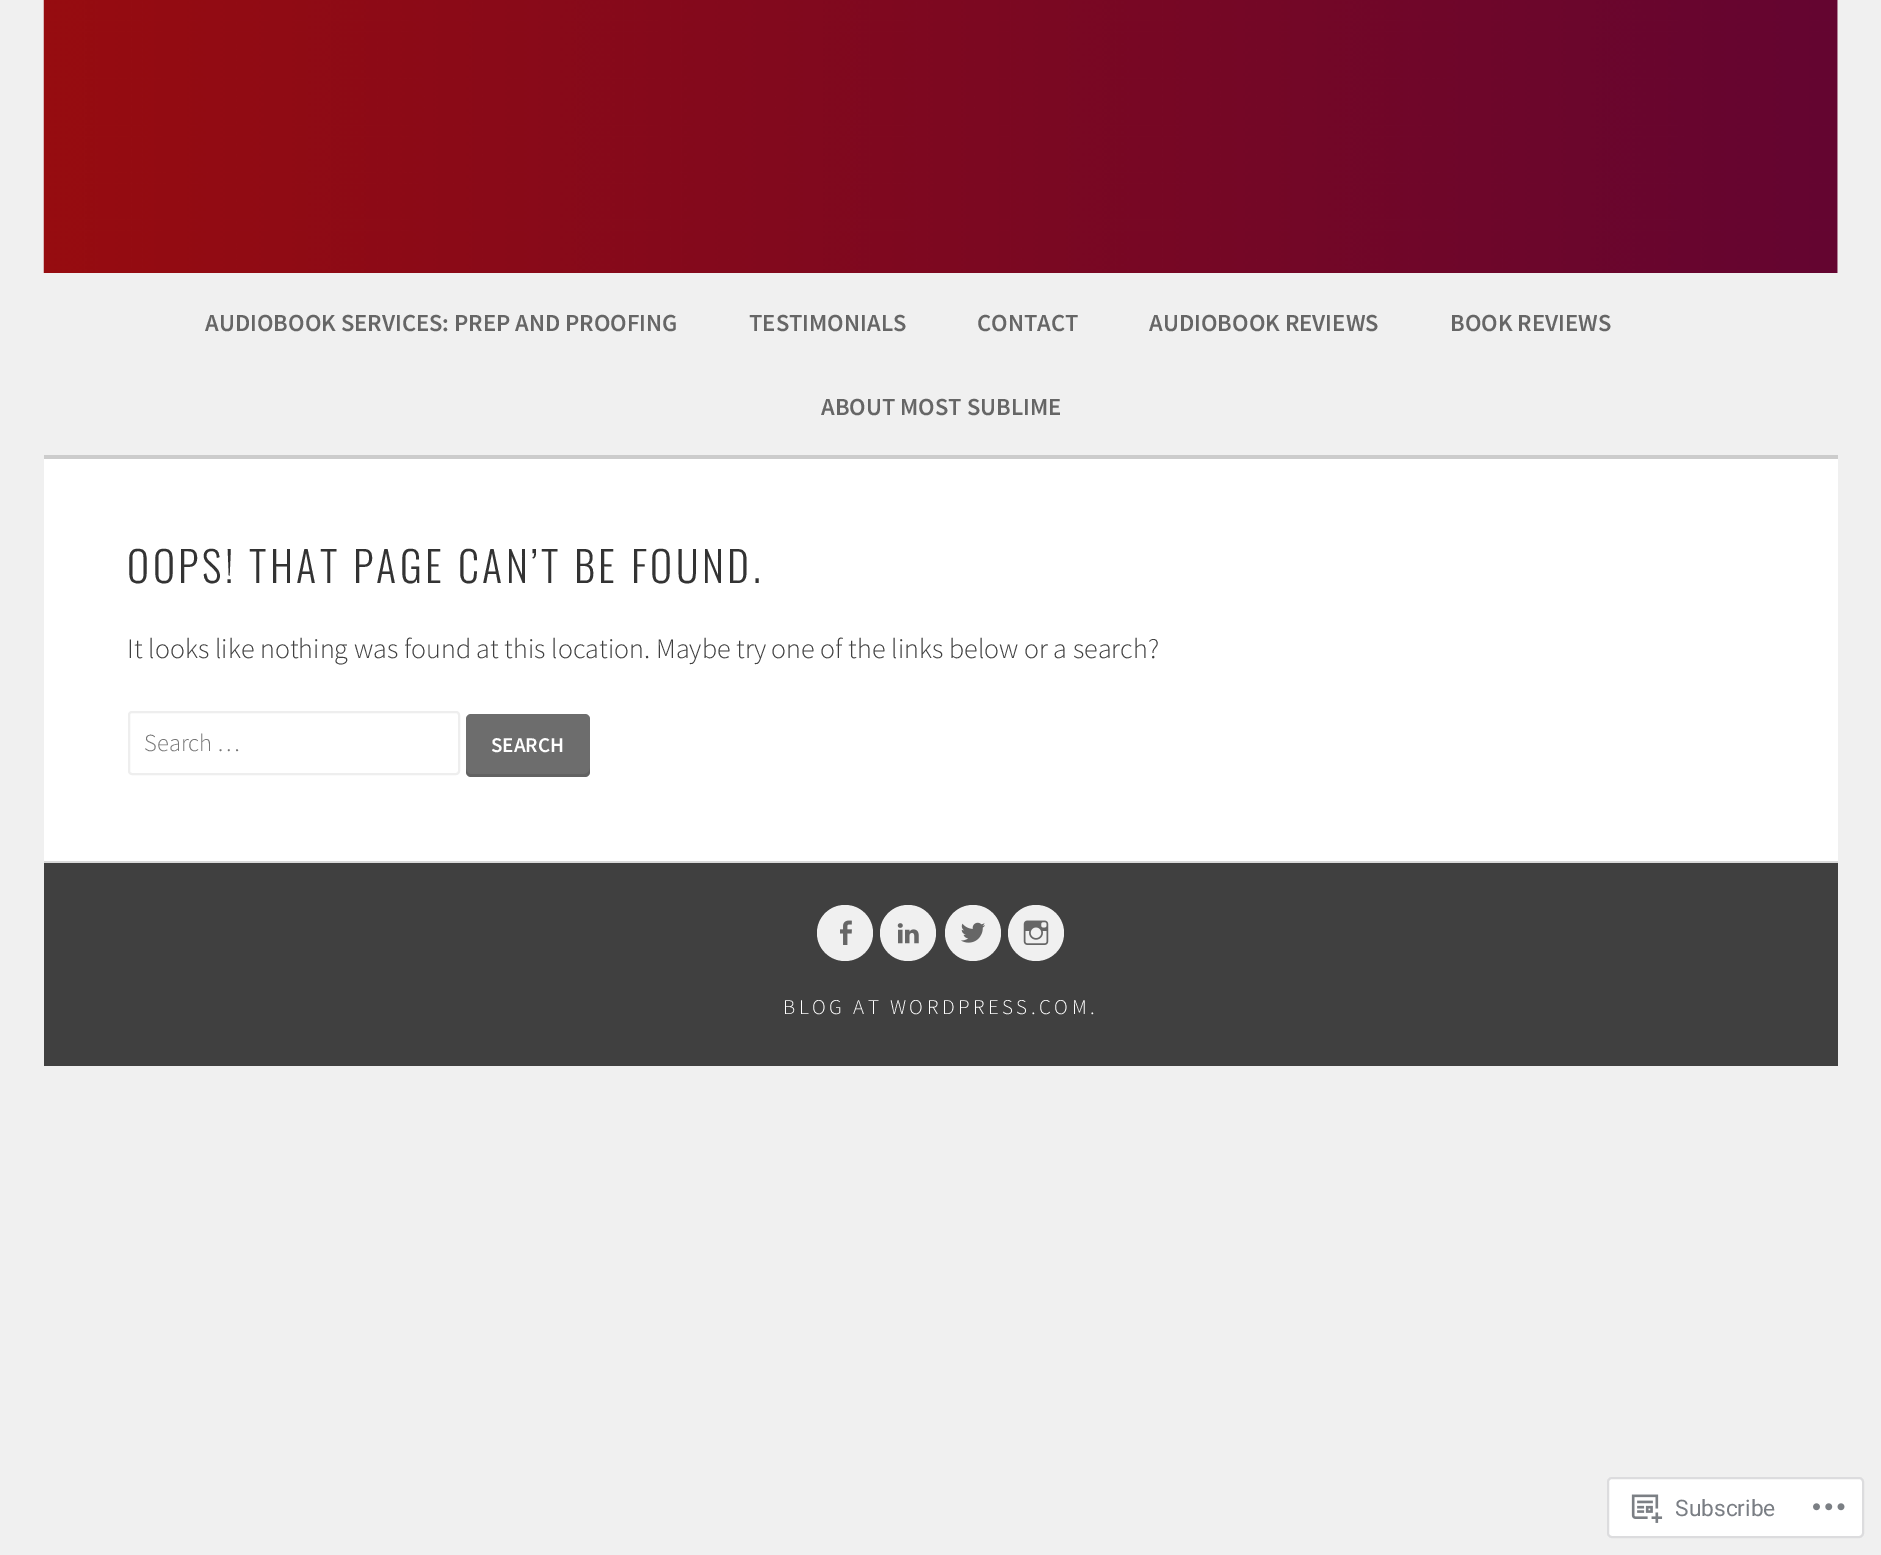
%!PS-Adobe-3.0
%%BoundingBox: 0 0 1881 1555
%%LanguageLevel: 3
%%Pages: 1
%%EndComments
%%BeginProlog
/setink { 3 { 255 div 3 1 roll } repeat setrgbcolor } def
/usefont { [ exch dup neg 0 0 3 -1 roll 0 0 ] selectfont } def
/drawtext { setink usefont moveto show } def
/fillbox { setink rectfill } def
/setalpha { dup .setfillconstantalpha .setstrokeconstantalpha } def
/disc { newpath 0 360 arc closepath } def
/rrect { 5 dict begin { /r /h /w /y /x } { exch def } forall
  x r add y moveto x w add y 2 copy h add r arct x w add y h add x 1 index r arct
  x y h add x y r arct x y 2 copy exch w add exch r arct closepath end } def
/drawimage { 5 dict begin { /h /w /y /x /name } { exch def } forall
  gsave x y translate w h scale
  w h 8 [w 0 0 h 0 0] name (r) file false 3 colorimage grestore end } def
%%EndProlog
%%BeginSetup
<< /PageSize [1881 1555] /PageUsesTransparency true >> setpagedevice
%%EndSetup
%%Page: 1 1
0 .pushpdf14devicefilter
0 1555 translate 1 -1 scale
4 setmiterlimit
0 0 1881 1555 240 240 240 fillbox
1837 0 1 273 255 255 255 fillbox
(assets/img1.rgb) 43 0 1795 273 drawimage
44 455 1794 4 204 204 204 fillbox
(AUDIOBOOK SERVICES: PREP AND PROOFING) 205 331 /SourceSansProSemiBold-SemiBold 24.5 102 102 102 drawtext
(TESTIMONIALS) 749 331 /SourceSansProSemiBold-SemiBold 24.5 102 102 102 drawtext
(CONTACT) 977 331 /SourceSansProSemiBold-SemiBold 24.5 102 102 102 drawtext
(AUDIOBOOK REVIEWS) 1149 331 /SourceSansProSemiBold-SemiBold 24.5 102 102 102 drawtext
(BOOK REVIEWS) 1450 331 /SourceSansProSemiBold-SemiBold 24.5 102 102 102 drawtext
(ABOUT MOST SUBLIME) 821 415 /SourceSansProSemiBold-SemiBold 24.5 102 102 102 drawtext
44 459 1794 402 255 255 255 fillbox
/Oswald-Light 42 usefont
51 51 51 setink
127 583 moveto 3.5 0 (OOPS! THAT PAGE CAN’T BE FOUND.) ashow
(It looks like nothing was found at this location. Maybe try one of the links below or a search?) 127 658 /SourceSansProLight-Light 28 64 64 64 drawtext
238 238 238 setink
2 setlinewidth
129 712 330 62 3 rrect stroke
(Search …) 144 751 /SourceSansProLight-Light 24.5 117 117 117 drawtext
109 109 109 setink
466 714 124 63 5 rrect fill
0.1 setalpha
0 0 0 setink
466 768 moveto 466 772 lineto 466 775 468 777 471 777 curveto 585 777 lineto 588 777 590 775 590 772 curveto 590 768 lineto 590 771 587 774 584 774 curveto 471 774 lineto 468 774 466 771 466 768 curveto closepath fill
1 setalpha
(SEARCH) 491 752 /SourceSansProSemiBold-SemiBold 21 255 255 255 drawtext
44 863 1794 203 64 64 64 fillbox
44 861 1794 2 217 217 217 fillbox
240 240 240 setink
845 933 28 disc fill
(assets/img2.rgb) 840 920 12 25 drawimage
908 933 28 disc fill
(assets/img3.rgb) 897 923 22 21 drawimage
973 933 28 disc fill
(assets/img4.rgb) 961 922 24 21 drawimage
1036 933 28 disc fill
(assets/img5.rgb) 1023 920 26 25 drawimage
/SourceSansProLight-Light 21 usefont
255 255 255 setink
783 1014 moveto 3.5 0 (BLOG AT WORDPRESS.COM.) ashow
1608 1478 255 59 4 rrect gsave fill grestore
220 220 222 setink
stroke
(assets/img6.rgb) 1631 1494 32 29 drawimage
(Subscribe) 1675 1516 /Roboto-Regular 22.75 122 126 132 drawtext
(assets/img7.rgb) 1813 1503 32 8 drawimage
.poppdf14devicefilter showpage
%%EOF
